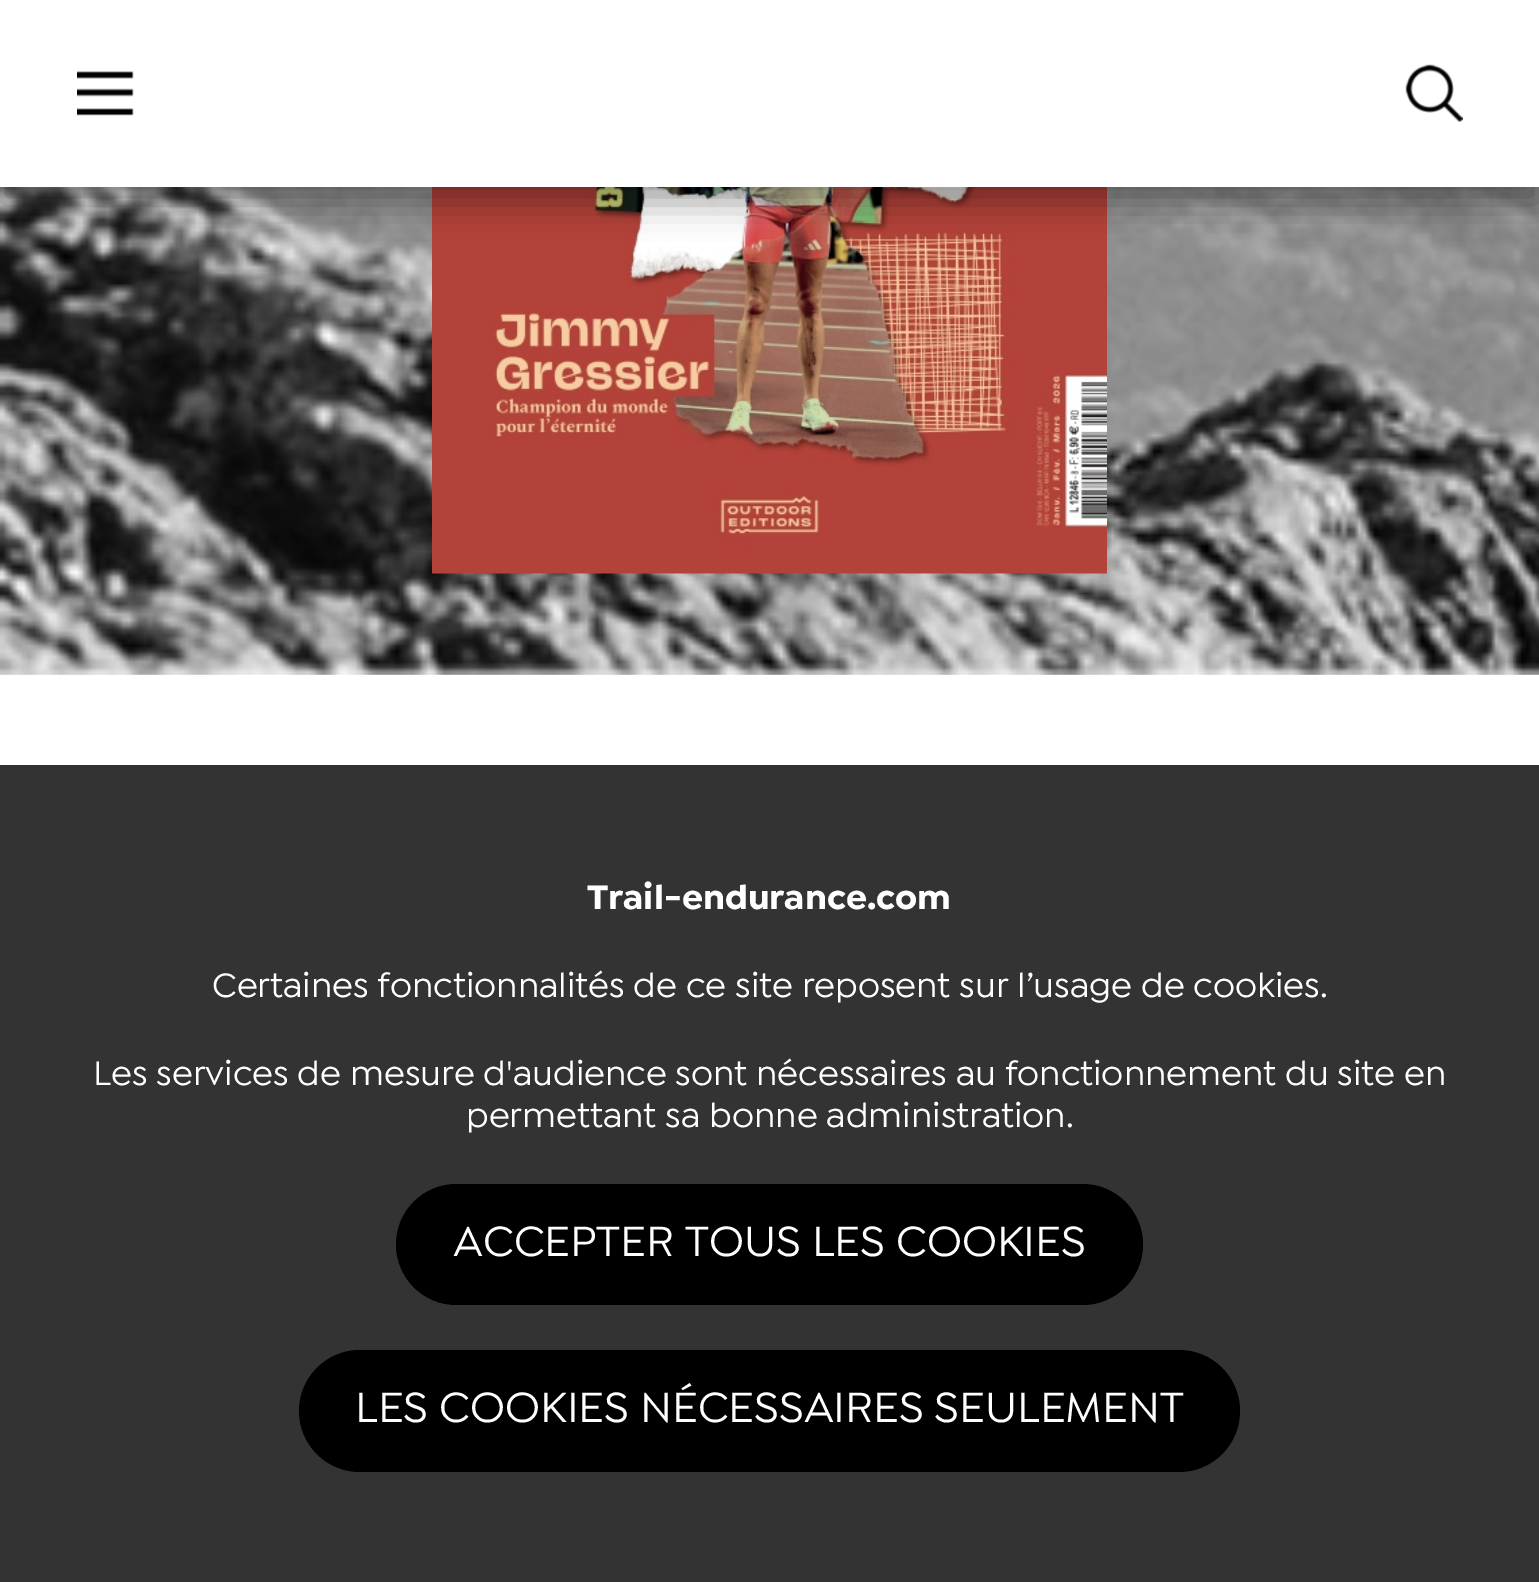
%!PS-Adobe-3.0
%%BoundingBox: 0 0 1539 1582
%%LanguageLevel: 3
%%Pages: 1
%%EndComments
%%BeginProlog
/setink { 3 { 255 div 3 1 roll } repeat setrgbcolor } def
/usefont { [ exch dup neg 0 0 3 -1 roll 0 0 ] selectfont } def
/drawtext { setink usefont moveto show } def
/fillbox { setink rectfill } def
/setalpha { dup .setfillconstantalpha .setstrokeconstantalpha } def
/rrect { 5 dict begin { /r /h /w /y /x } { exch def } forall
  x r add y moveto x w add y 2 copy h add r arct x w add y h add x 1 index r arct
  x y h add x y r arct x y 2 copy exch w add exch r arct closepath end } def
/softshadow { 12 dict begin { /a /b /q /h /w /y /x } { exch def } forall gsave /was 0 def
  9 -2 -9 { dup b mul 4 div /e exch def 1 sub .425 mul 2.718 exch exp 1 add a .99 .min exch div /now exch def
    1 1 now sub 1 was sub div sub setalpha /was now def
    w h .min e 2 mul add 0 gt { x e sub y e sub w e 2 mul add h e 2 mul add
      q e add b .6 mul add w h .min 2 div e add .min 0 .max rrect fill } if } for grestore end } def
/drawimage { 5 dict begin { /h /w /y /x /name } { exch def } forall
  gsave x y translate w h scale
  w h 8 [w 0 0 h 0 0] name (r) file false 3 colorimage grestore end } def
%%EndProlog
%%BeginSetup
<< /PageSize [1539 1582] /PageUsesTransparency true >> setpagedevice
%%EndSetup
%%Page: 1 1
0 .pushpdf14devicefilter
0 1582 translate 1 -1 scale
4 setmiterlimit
0 0 1539 1582 255 255 255 fillbox
(assets/img3.rgb) 0 187 1539 488 drawimage
(assets/img4.rgb) 432 187 675 387 drawimage
0 0 0 setink
0 16 1539 187 0 17 0.35 softshadow
0 0 1539 187 255 255 255 fillbox
(assets/img1.rgb) 77 71 57 45 drawimage
(assets/img2.rgb) 1405 64 58 58 drawimage
0 765 1539 817 51 51 51 fillbox
(Trail-endurance.com) 587 909 /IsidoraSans-Bold 36 255 255 255 drawtext
(Certaines fonctionnalités de ce site reposent sur l’usage de cookies.) 212 997 /IsidoraSans-Medium 36 255 255 255 drawtext
(Les services de mesure d'audience sont nécessaires au fonctionnement du site en) 93 1085 /IsidoraSans-Medium 36 255 255 255 drawtext
(permettant sa bonne administration.) 466 1127 /IsidoraSans-Medium 36 255 255 255 drawtext
0 0 0 setink
396 1184 747 121 60.5 rrect fill
(ACCEPTER TOUS LES COOKIES) 453 1256 /IsidoraSans-Medium 45 255 255 255 drawtext
0 0 0 setink
299 1350 941 122 61 rrect fill
(LES COOKIES NÉCESSAIRES SEULEMENT) 355 1422 /IsidoraSans-Medium 45 255 255 255 drawtext
.poppdf14devicefilter showpage
%%EOF
